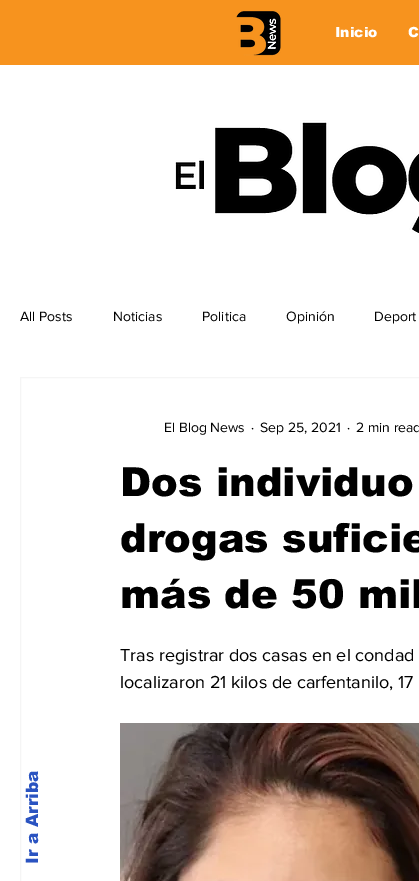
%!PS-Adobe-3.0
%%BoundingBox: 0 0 419 881
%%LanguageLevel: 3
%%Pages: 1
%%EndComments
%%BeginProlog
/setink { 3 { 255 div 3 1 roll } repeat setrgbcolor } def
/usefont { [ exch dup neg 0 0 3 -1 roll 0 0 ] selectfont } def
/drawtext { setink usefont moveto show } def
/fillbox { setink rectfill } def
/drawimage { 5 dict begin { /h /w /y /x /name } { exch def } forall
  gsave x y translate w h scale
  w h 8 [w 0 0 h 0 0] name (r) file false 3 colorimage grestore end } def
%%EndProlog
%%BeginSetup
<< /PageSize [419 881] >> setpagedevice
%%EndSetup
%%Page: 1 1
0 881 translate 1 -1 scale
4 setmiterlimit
0 0 419 881 255 255 255 fillbox
0 0 419 65 247 147 30 fillbox
(assets/img1.rgb) 236 11 45 45 drawimage
(Inicio) 335 37 /arial-Black 14 255 255 255 drawtext
(C) 408 37 /arial-Black 14 255 255 255 drawtext
(assets/img2.rgb) 175 120 244 113 drawimage
(All Posts) 20 321 /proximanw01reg-Regular 14 0 0 0 drawtext
(Noticias) 113 321 /proximanw01reg-Regular 14 0 0 0 drawtext
(Politica) 202 321 /proximanw01reg-Regular 14 0 0 0 drawtext
(Opinión) 286 321 /proximanw01reg-Regular 14 0 0 0 drawtext
(Deport) 374 321 /proximanw01reg-Regular 14 0 0 0 drawtext
245 245 245 setink
20.5 377.5 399 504 rectstroke
(El Blog News) 164 432 /proximanw01reg-Regular 14 0 0 0 drawtext
(·) 251 432 /proximanw01reg-Regular 14 0 0 0 drawtext
(Sep 25, 2021) 260 432 /proximanw01reg-Regular 14 0 0 0 drawtext
(·) 347 432 /proximanw01reg-Regular 14 0 0 0 drawtext
(2 min read) 356 432 /proximanw01reg-Regular 14 0 0 0 drawtext
(Dos individuo) 120 496 /arial-Black 40 0 0 0 drawtext
(drogas suficie) 120 552 /arial-Black 40 0 0 0 drawtext
(más de 50 mil) 120 608 /arial-Black 40 0 0 0 drawtext
(Tras registrar dos casas en el condad) 120 661 /proximanw01reg-Regular 18 0 0 0 drawtext
(localizaron 21 kilos de carfentanilo, 17) 120 688 /proximanw01reg-Regular 18 0 0 0 drawtext
(assets/img3.rgb) 120 723 299 158 drawimage
/arial-Black 17 usefont
42 83 193 setink
gsave 38 864 translate -90 rotate 0 0 moveto (Ir a Arriba) show grestore
showpage
%%EOF
